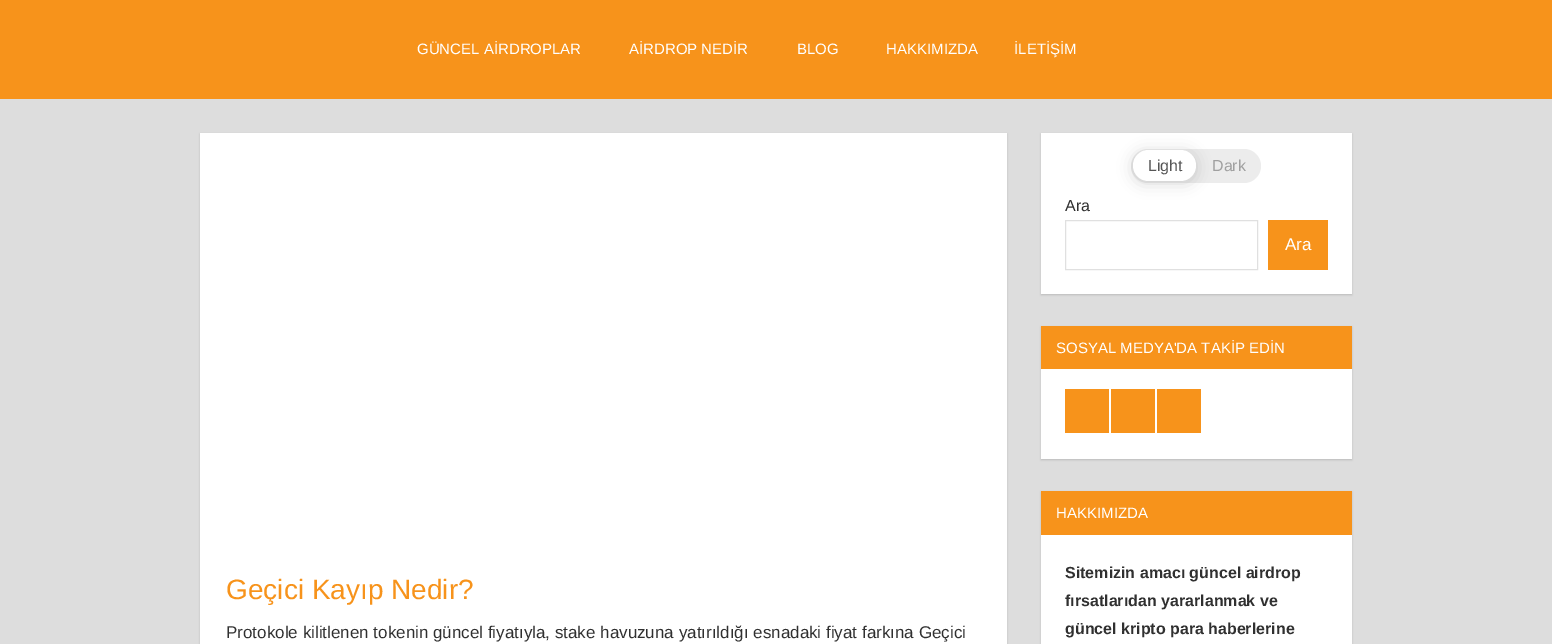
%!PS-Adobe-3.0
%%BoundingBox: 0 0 1552 644
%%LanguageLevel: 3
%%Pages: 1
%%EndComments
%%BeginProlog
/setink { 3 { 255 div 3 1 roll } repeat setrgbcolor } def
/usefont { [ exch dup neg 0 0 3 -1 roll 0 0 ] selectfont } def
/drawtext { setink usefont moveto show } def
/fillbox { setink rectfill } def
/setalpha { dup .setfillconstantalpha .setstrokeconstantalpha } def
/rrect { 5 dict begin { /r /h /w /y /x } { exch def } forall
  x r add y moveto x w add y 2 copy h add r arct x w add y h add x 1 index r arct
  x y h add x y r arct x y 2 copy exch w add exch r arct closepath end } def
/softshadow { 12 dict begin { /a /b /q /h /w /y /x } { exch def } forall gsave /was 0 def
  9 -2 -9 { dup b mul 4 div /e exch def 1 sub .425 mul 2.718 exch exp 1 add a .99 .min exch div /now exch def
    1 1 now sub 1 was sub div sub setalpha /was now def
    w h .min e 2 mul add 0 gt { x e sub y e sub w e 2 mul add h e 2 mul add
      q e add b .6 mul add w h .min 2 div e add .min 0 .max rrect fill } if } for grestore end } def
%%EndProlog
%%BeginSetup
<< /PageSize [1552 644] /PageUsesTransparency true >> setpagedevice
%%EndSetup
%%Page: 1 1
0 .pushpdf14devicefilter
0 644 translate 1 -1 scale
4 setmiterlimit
0 0 1552 644 221 221 221 fillbox
0 0 1552 99 247 147 27 fillbox
(GÜNCEL AİRDROPLAR) 417 54 /LiberationSans-Regular 15 255 255 255 drawtext
(AİRDROP NEDİR) 629 54 /LiberationSans-Regular 15 255 255 255 drawtext
(BLOG) 797 54 /LiberationSans-Regular 15 255 255 255 drawtext
(HAKKIMIZDA) 886 54 /LiberationSans-Regular 15 255 255 255 drawtext
(İLETİŞİM) 1014 54 /LiberationSans-Regular 15 255 255 255 drawtext
187 187 187 setink
200 134 807 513 0 1 1 softshadow
200 133 807 511 255 255 255 fillbox
(Geçici Kayıp Nedir?) 226 599 /LiberationSans-Regular 28 247 147 27 drawtext
(Protokole kilitlenen tokenin güncel fiyatıyla, stake havuzuna yatırıldığı esnadaki fiyat farkına Geçici) 226 638 /LiberationSans-Regular 17 48 48 48 drawtext
187 187 187 setink
1041 134 311 161 0 1 1 softshadow
1041 133 311 161 255 255 255 fillbox
236 236 236 setink
1131 149 130 34 17 rrect fill
0 0 0 setink
1133 152 63 31 15.5 7.5 0.15 softshadow
255 255 255 setink
1133 150 63 31 15.5 rrect fill
(Light) 1148 171 /LiberationSans-Regular 16 85 85 85 drawtext
(Dark) 1212 171 /LiberationSans-Regular 16 160 160 160 drawtext
(Ara) 1065 211 /LiberationSans-Regular 16 48 48 48 drawtext
224 224 224 setink
1065.5 220.5 192 49 rectstroke
1268 220 60 50 247 147 27 fillbox
(Ara) 1285 250 /LiberationSans-Regular 17 255 255 255 drawtext
187 187 187 setink
1041 327 311 133 0 1 1 softshadow
1041 369 311 90 255 255 255 fillbox
1041 326 311 43 247 147 27 fillbox
(SOSYAL MEDYA'DA TAKİP EDİN) 1056 353 /LiberationSans-Regular 15 255 255 255 drawtext
1065 389 44 44 247 147 27 fillbox
1111 389 44 44 247 147 27 fillbox
1157 389 44 44 247 147 27 fillbox
187 187 187 setink
1041 492 311 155 0 1 1 softshadow
1041 535 311 109 255 255 255 fillbox
1041 491 311 44 247 147 27 fillbox
(HAKKIMIZDA) 1056 518 /LiberationSans-Regular 15 255 255 255 drawtext
(Sitemizin amacı güncel airdrop) 1065 578 /LiberationSans-Bold 16 48 48 48 drawtext
(fırsatlarıdan yararlanmak ve) 1065 606 /LiberationSans-Bold 16 48 48 48 drawtext
(güncel kripto para haberlerine) 1065 634 /LiberationSans-Bold 16 48 48 48 drawtext
.poppdf14devicefilter showpage
%%EOF
